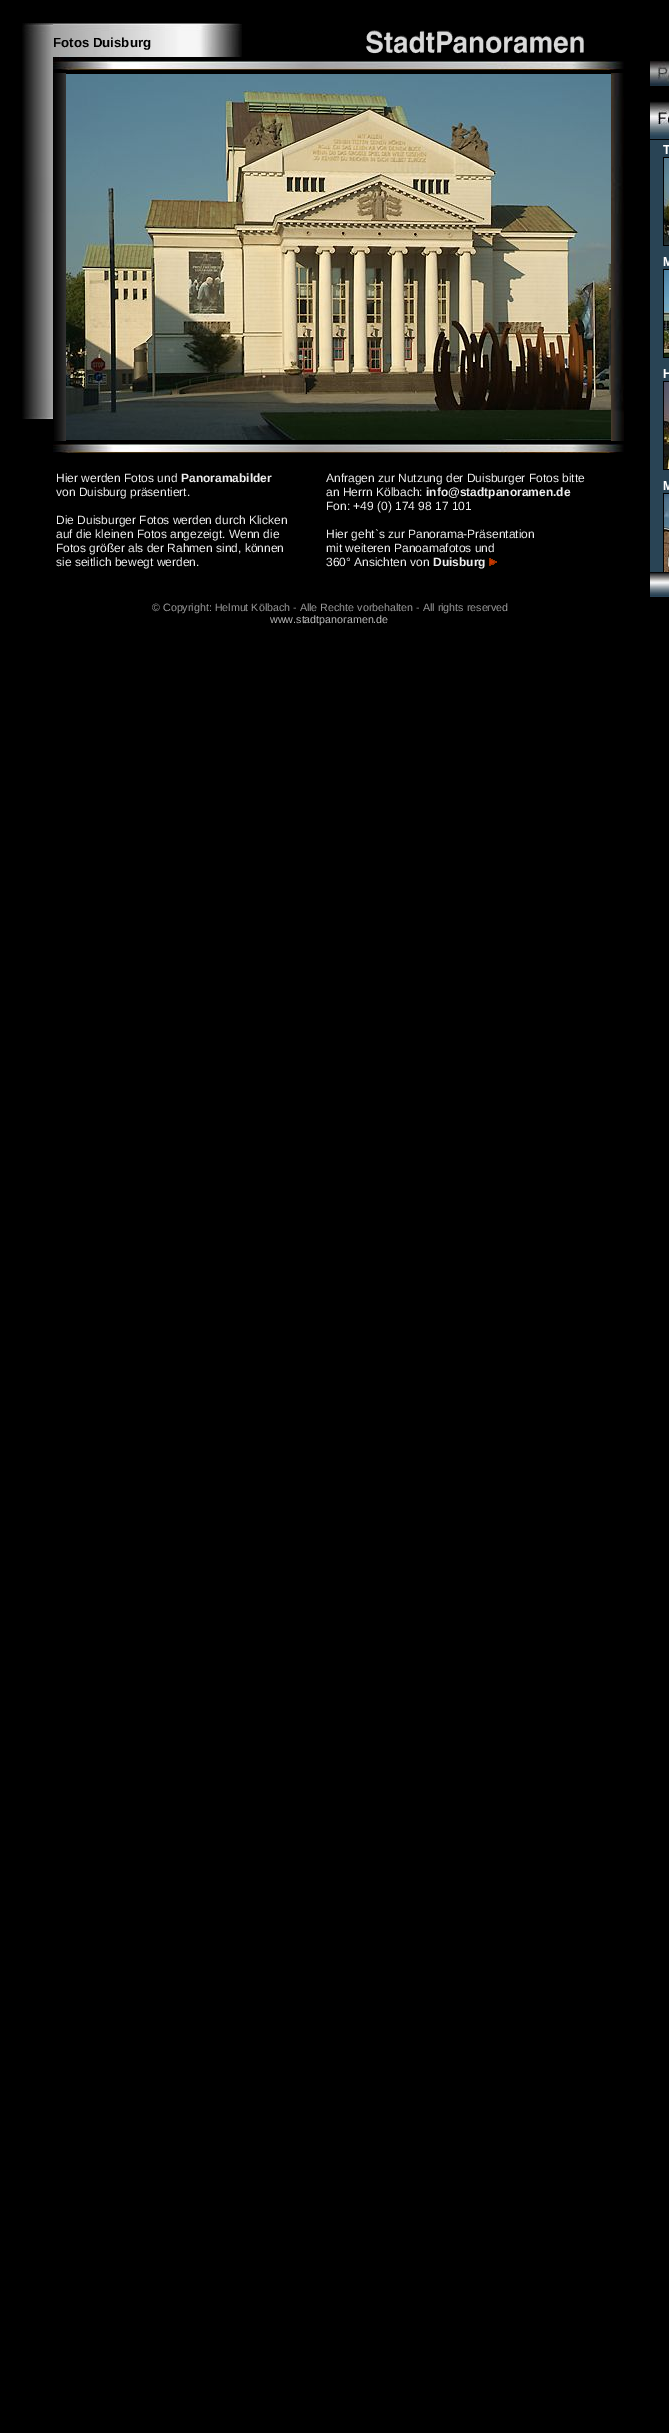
%!PS-Adobe-3.0
%%BoundingBox: 0 0 669 2433
%%LanguageLevel: 3
%%Pages: 1
%%EndComments
%%BeginProlog
/setink { 3 { 255 div 3 1 roll } repeat setrgbcolor } def
/usefont { [ exch dup neg 0 0 3 -1 roll 0 0 ] selectfont } def
/drawtext { setink usefont moveto show } def
/fillbox { setink rectfill } def
/drawimage { 5 dict begin { /h /w /y /x /name } { exch def } forall
  gsave x y translate w h scale
  w h 8 [w 0 0 h 0 0] name (r) file false 3 colorimage grestore end } def
%%EndProlog
%%BeginSetup
<< /PageSize [669 2433] >> setpagedevice
%%EndSetup
%%Page: 1 1
0 2433 translate 1 -1 scale
4 setmiterlimit
0 0 669 2433 0 0 0 fillbox
(assets/img1.rgb) 22 23 31 396 drawimage
(assets/img2.rgb) 53 23 189 38 drawimage
(Fotos Duisburg) 53 47 /LiberationSans-Bold 13.25 0 0 0 drawtext
(assets/img3.rgb) 366 30 218 24 drawimage
(assets/img4.rgb) 53 61 571 9 drawimage
(assets/img5.rgb) 650 61 19 536 drawimage
(assets/img6.rgb) 54 73 12 368 drawimage
(assets/img7.rgb) 66 74 545 366 drawimage
(assets/img8.rgb) 611 73 13 368 drawimage
(assets/img4.rgb) 53 444 571 9 drawimage
(Hier werden Fotos und) 56 482 /LiberationSans-Regular 12 238 238 238 drawtext
(Panoramabilder) 181 482 /LiberationSans-Bold 12 238 238 238 drawtext
(von Duisburg präsentiert.) 56 496 /LiberationSans-Regular 12 238 238 238 drawtext
(Die Duisburger Fotos werden durch Klicken) 56 524 /LiberationSans-Regular 12 238 238 238 drawtext
(auf die kleinen Fotos angezeigt. Wenn die) 56 538 /LiberationSans-Regular 12 238 238 238 drawtext
(Fotos größer als der Rahmen sind, können) 56 552 /LiberationSans-Regular 12 238 238 238 drawtext
(sie seitlich bewegt werden.) 56 566 /LiberationSans-Regular 12 238 238 238 drawtext
(Anfragen zur Nutzung der Duisburger Fotos bitte) 326 482 /LiberationSans-Regular 12 238 238 238 drawtext
(an Herrn Kölbach:) 326 496 /LiberationSans-Regular 12 238 238 238 drawtext
(info@stadtpanoramen.de) 426 496 /LiberationSans-Bold 12 238 238 238 drawtext
(Fon: +49 \(0\) 174 98 17 101) 326 510 /LiberationSans-Regular 12 238 238 238 drawtext
(Hier geht`s zur Panorama-Präsentation) 326 538 /LiberationSans-Regular 12 238 238 238 drawtext
(mit weiteren Panoamafotos und) 326 552 /LiberationSans-Regular 12 238 238 238 drawtext
(360° Ansichten von) 326 566 /LiberationSans-Regular 12 238 238 238 drawtext
(Duisburg) 433 566 /LiberationSans-Bold 12 238 238 238 drawtext
(assets/img9.rgb) 489 558 8 8 drawimage
(© Copyright: Helmut Kölbach - Alle Rechte vorbehalten - All rights reserved) 152 611 /LiberationSans-Regular 10.7 153 153 153 drawtext
(www.stadtpanoramen.de) 270 623 /LiberationSans-Regular 10.7 187 187 187 drawtext
showpage
%%EOF
